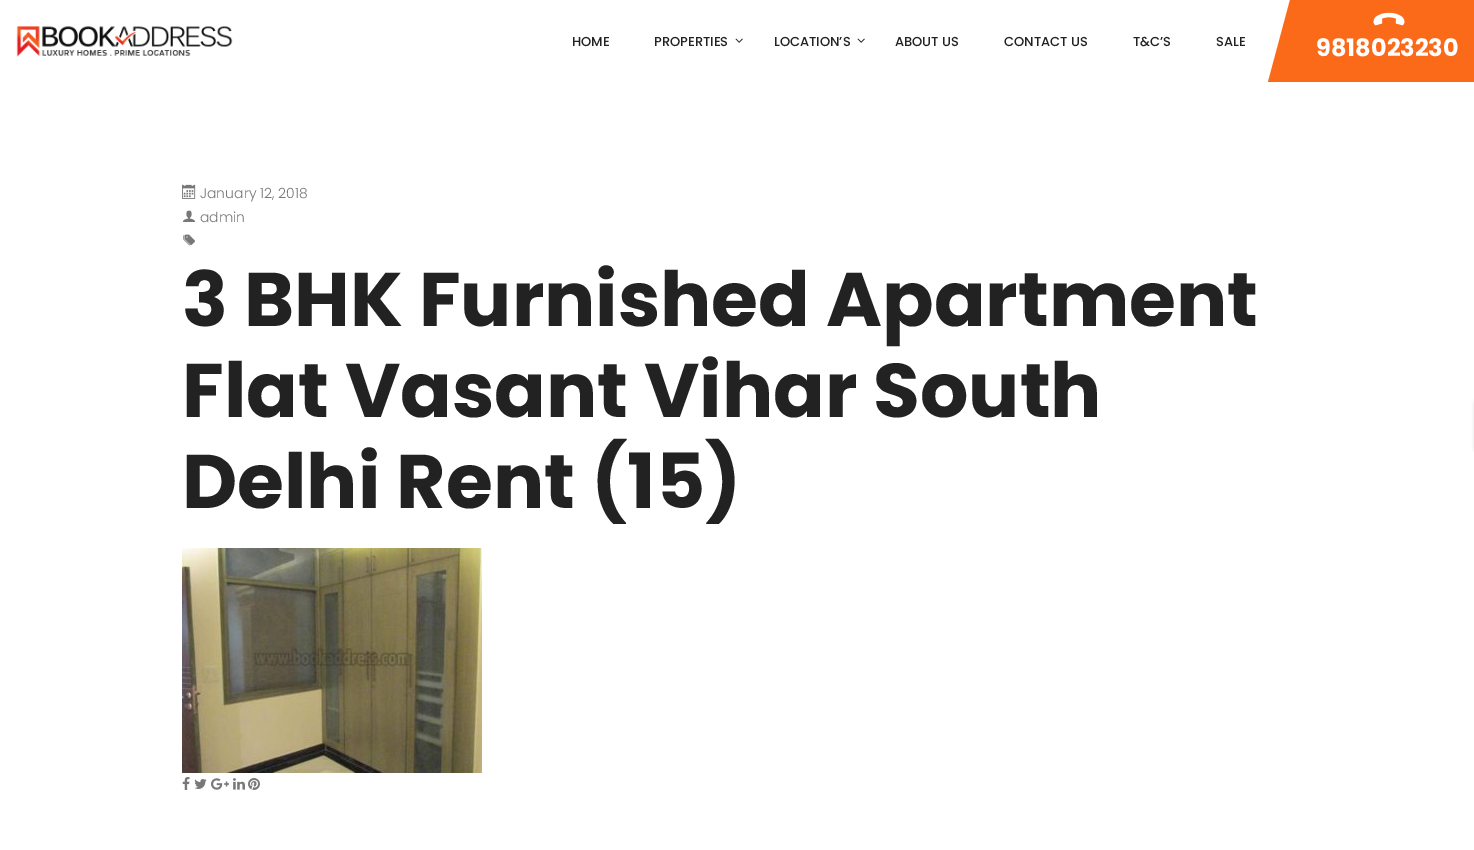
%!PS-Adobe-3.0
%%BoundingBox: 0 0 1474 850
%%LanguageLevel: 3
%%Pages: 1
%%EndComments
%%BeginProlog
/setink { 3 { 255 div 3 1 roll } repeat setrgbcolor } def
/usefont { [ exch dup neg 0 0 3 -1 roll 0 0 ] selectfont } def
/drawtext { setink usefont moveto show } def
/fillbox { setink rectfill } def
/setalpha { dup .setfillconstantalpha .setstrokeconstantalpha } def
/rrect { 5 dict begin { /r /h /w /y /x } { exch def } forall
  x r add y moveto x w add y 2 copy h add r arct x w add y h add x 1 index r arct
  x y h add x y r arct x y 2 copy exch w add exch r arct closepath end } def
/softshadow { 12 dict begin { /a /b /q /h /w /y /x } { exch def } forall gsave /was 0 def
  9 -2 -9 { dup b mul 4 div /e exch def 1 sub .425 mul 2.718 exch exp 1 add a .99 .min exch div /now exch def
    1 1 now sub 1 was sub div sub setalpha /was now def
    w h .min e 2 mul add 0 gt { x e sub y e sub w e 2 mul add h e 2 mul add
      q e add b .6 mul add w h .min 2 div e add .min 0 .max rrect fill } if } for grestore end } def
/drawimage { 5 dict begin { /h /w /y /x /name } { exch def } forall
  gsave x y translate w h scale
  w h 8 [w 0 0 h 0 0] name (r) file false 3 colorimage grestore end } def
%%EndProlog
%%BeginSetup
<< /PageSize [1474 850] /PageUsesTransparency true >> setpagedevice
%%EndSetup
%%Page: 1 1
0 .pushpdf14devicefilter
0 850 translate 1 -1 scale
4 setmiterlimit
0 0 1474 850 255 255 255 fillbox
(assets/img1.rgb) 16 26 217 31 drawimage
(HOME) 572 46 /Poppins-Medium 13 34 34 34 drawtext
(PROPERTIES) 654 46 /Poppins-Medium 13 34 34 34 drawtext
(assets/img2.rgb) 735 38 8 5 drawimage
(LOCATION’S) 774 46 /Poppins-Medium 13 34 34 34 drawtext
(assets/img2.rgb) 857 38 8 5 drawimage
(ABOUT US) 895 46 /Poppins-Medium 13 34 34 34 drawtext
(CONTACT US) 1004 46 /Poppins-Medium 13 34 34 34 drawtext
(T&C’S) 1133 46 /Poppins-Medium 13 34 34 34 drawtext
(SALE) 1216 46 /Poppins-Medium 13 34 34 34 drawtext
1290 0 184 82 251 106 25 fillbox
1290 82 moveto 1268 82 lineto 1290 0 lineto closepath fill
(assets/img3.rgb) 1373 12 32 14 drawimage
(9818023230) 1316 56 /Poppins-Bold 24 255 255 255 drawtext
(assets/img4.rgb) 182 184 14 15 drawimage
(January 12, 2018) 200 198 /Poppins-Light 14 120 120 120 drawtext
(assets/img5.rgb) 182 210 14 12 drawimage
(admin) 200 222 /Poppins-Light 14 120 120 120 drawtext
(assets/img6.rgb) 183 234 12 12 drawimage
(3 BHK Furnished Apartment) 182 326 /Poppins-Bold 76 34 34 34 drawtext
(Flat Vasant Vihar South) 182 417 /Poppins-Bold 76 34 34 34 drawtext
(Delhi Rent \(15\)) 182 508 /Poppins-Bold 76 34 34 34 drawtext
(assets/img7.rgb) 182 548 300 225 drawimage
(assets/img8.rgb) 182 777 8 13 drawimage
(assets/img9.rgb) 194 779 13 10 drawimage
(assets/img10.rgb) 211 778 18 12 drawimage
(assets/img11.rgb) 233 778 12 12 drawimage
(assets/img12.rgb) 248 778 12 12 drawimage
119 119 119 setink
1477 403 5 46 0 2.5 1 softshadow
.poppdf14devicefilter showpage
%%EOF
